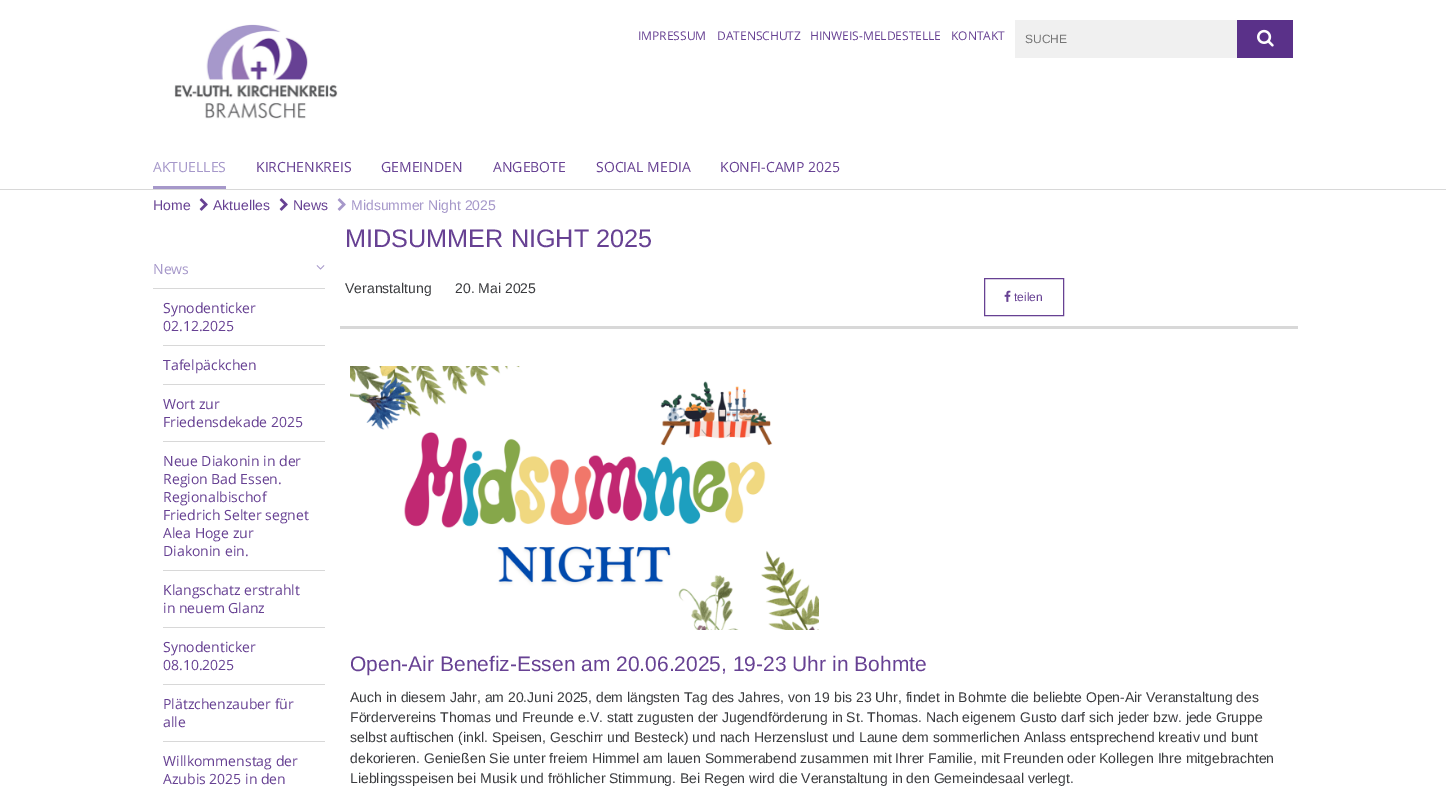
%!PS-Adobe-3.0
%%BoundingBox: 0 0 1446 795
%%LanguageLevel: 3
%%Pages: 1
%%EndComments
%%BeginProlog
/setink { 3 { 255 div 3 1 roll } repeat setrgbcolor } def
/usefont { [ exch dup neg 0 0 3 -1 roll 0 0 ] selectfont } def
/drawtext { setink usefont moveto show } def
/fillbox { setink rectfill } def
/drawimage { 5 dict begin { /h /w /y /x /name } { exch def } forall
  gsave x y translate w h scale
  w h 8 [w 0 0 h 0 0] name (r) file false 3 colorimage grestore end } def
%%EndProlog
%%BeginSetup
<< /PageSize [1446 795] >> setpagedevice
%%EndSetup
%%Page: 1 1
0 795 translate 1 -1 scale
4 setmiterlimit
0 0 1446 795 255 255 255 fillbox
0 189 1446 1 216 216 216 fillbox
(assets/img1.rgb) 174 24 164 95 drawimage
(IMPRESSUM) 638 40 /OpenSans-Regular 12 103 65 147 drawtext
(DATENSCHUTZ) 717 40 /OpenSans-Regular 12 103 65 147 drawtext
(HINWEIS-MELDESTELLE) 810 40 /OpenSans-Regular 12 103 65 147 drawtext
(KONTAKT) 951 40 /OpenSans-Regular 12 103 65 147 drawtext
1015 20 222 38 240 240 240 fillbox
(SUCHE) 1025 43 /LiberationSans-Regular 12 117 117 117 drawtext
1237 20 56 38 90 49 137 fillbox
(assets/img2.rgb) 1257 29 17 18 drawimage
153 186 73 3 166 152 202 fillbox
(AKTUELLES) 153 172 /OpenSans-Regular 14 166 152 202 drawtext
(KIRCHENKREIS) 256 172 /OpenSans-Regular 14 103 65 147 drawtext
(GEMEINDEN) 381 172 /OpenSans-Regular 14 103 65 147 drawtext
(ANGEBOTE) 493 172 /OpenSans-Regular 14 103 65 147 drawtext
(SOCIAL MEDIA) 596 172 /OpenSans-Regular 14 103 65 147 drawtext
(KONFI-CAMP 2025) 720 172 /OpenSans-Regular 14 103 65 147 drawtext
(Home) 153 210 /LiberationSans-Regular 14 103 65 147 drawtext
(assets/img3.rgb) 199 198 9 13 drawimage
(Aktuelles) 213 210 /LiberationSans-Regular 14 103 65 147 drawtext
(assets/img3.rgb) 279 198 9 13 drawimage
(News) 293 210 /LiberationSans-Regular 14 103 65 147 drawtext
(assets/img4.rgb) 337 198 9 13 drawimage
(Midsummer Night 2025) 351 210 /LiberationSans-Regular 14 166 152 202 drawtext
153 288 172 1 216 216 216 fillbox
(News) 153 274 /OpenSans-Regular 14 166 152 202 drawtext
(assets/img5.rgb) 316 265 9 5 drawimage
163 345 162 1 216 216 216 fillbox
(Synodenticker) 163 313 /OpenSans-Regular 14 103 65 147 drawtext
(02.12.2025) 163 331 /OpenSans-Regular 14 103 65 147 drawtext
163 384 162 1 216 216 216 fillbox
(Tafelpäckchen) 163 370 /OpenSans-Regular 14 103 65 147 drawtext
163 441 162 1 216 216 216 fillbox
(Wort zur) 163 409 /OpenSans-Regular 14 103 65 147 drawtext
(Friedensdekade 2025) 163 427 /OpenSans-Regular 14 103 65 147 drawtext
163 570 162 1 216 216 216 fillbox
(Neue Diakonin in der) 163 466 /OpenSans-Regular 14 103 65 147 drawtext
(Region Bad Essen.) 163 484 /OpenSans-Regular 14 103 65 147 drawtext
(Regionalbischof) 163 502 /OpenSans-Regular 14 103 65 147 drawtext
(Friedrich Selter segnet) 163 520 /OpenSans-Regular 14 103 65 147 drawtext
(Alea Hoge zur) 163 538 /OpenSans-Regular 14 103 65 147 drawtext
(Diakonin ein.) 163 556 /OpenSans-Regular 14 103 65 147 drawtext
163 627 162 1 216 216 216 fillbox
(Klangschatz erstrahlt) 163 595 /OpenSans-Regular 14 103 65 147 drawtext
(in neuem Glanz) 163 613 /OpenSans-Regular 14 103 65 147 drawtext
163 684 162 1 216 216 216 fillbox
(Synodenticker) 163 652 /OpenSans-Regular 14 103 65 147 drawtext
(08.10.2025) 163 670 /OpenSans-Regular 14 103 65 147 drawtext
163 741 162 1 216 216 216 fillbox
(Plätzchenzauber für) 163 709 /OpenSans-Regular 14 103 65 147 drawtext
(alle) 163 727 /OpenSans-Regular 14 103 65 147 drawtext
(Willkommenstag der) 163 766 /OpenSans-Regular 14 103 65 147 drawtext
(Azubis 2025 in den) 163 784 /OpenSans-Regular 14 103 65 147 drawtext
(MIDSUMMER NIGHT 2025) 345 247 /LiberationSans-Regular 25.25 103 65 147 drawtext
340 326 958 3 216 216 216 fillbox
(Veranstaltung) 345 293 /LiberationSans-Regular 14 58 59 62 drawtext
(20. Mai 2025) 455 293 /LiberationSans-Regular 14 58 59 62 drawtext
103 65 147 setink
984.5 278.5 79 37 rectstroke
(assets/img6.rgb) 1004 290 7 12 drawimage
(teilen) 1014 301 /LiberationSans-Regular 12 103 65 147 drawtext
(assets/img7.rgb) 350 366 469 264 drawimage
(Open-Air Benefiz-Essen am 20.06.2025, 19-23 Uhr in Bohmte) 350 671 /LiberationSans-Regular 21 103 65 147 drawtext
(Auch in diesem Jahr, am 20.Juni 2025, dem längsten Tag des Jahres, von 19 bis 23 Uhr, findet in Bohmte die beliebte Open-Air Veranstaltung des) 350 702 /LiberationSans-Regular 14 58 59 62 drawtext
(Fördervereins Thomas und Freunde e.V. statt zugusten der Jugendförderung in St. Thomas. Nach eigenem Gusto darf sich jeder bzw. jede Gruppe) 350 722 /LiberationSans-Regular 14 58 59 62 drawtext
(selbst auftischen \(inkl. Speisen, Geschirr und Besteck\) und nach Herzenslust und Laune dem sommerlichen Anlass entsprechend kreativ und bunt) 350 742 /LiberationSans-Regular 14 58 59 62 drawtext
(dekorieren. Genießen Sie unter freiem Himmel am lauen Sommerabend zusammen mit Ihrer Familie, mit Freunden oder Kollegen Ihre mitgebrachten) 350 763 /LiberationSans-Regular 14 58 59 62 drawtext
(Lieblingsspeisen bei Musik und fröhlicher Stimmung. Bei Regen wird die Veranstaltung in den Gemeindesaal verlegt.) 350 783 /LiberationSans-Regular 14 58 59 62 drawtext
showpage
%%EOF
